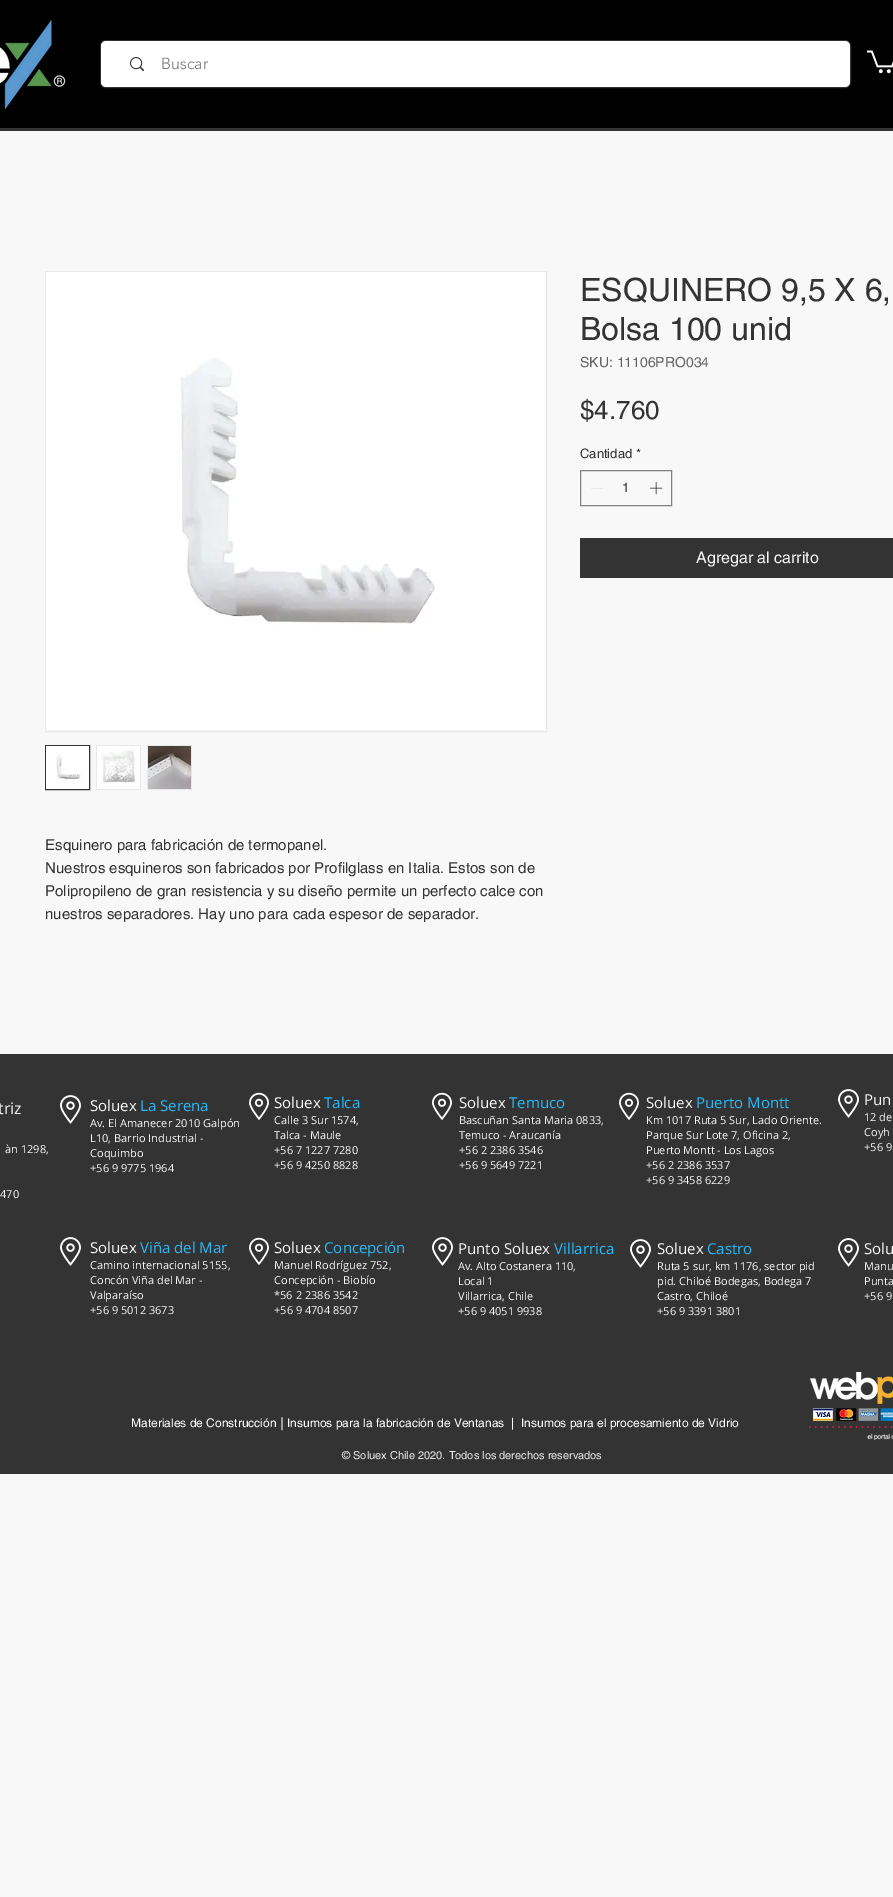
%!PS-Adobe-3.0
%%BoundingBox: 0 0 893 1897
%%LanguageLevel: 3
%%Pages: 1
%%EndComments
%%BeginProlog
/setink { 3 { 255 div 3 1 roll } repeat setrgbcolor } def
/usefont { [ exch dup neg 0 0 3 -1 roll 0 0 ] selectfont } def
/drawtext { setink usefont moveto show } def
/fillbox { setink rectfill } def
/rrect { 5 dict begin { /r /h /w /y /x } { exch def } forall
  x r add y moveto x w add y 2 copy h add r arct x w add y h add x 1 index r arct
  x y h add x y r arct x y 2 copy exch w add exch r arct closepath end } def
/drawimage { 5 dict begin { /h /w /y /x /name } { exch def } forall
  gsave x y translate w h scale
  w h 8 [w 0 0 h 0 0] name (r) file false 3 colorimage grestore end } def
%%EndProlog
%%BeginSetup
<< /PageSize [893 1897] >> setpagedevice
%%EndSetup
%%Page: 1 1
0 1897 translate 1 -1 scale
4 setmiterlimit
0 0 893 1897 248 248 248 fillbox
0 0 893 128 0 0 0 fillbox
0 128 893 3 51 51 51 fillbox
(assets/img1.rgb) 0 20 66 90 drawimage
100.5 40.5 750 47 5.5 rrect stroke
255 255 255 setink
101 41 749 46 5 rrect fill
(assets/img2.rgb) 130 57 14 14 drawimage
(Buscar) 161 69 /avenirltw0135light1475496-Light 16 120 120 120 drawtext
(assets/img3.rgb) 867 50 26 24 drawimage
(ESQUINERO 9,5 X 6,) 580 301 /helvetica-Regular 32 51 51 51 drawtext
(Bolsa 100 unid) 580 340 /helvetica-Regular 32 51 51 51 drawtext
(SKU: 11106PRO034) 580 367 /helvetica-Regular 14 101 101 101 drawtext
($4.760) 580 419 /helvetica-Regular 26 51 51 51 drawtext
(Cantidad) 580 458 /helvetica-Regular 13 51 51 51 drawtext
(*) 636 458 /helvetica-Regular 13 51 51 51 drawtext
130 130 130 setink
580.5 470.5 91 35 rectstroke
224 224 224 setink
603 488 moveto 603 488.5 lineto 591 488.5 lineto 591 488 lineto closepath eofill
(1) 622 492 /helvetica-Regular 13 51 51 51 drawtext
(assets/img4.rgb) 650 482 13 13 drawimage
580 538 313 40 51 51 51 fillbox
(Agregar al carrito) 696 563 /helvetica-Regular 16 248 248 248 drawtext
232 232 232 setink
45.5 271.5 501 460 rectstroke
(assets/img5.rgb) 46 272 500 458 drawimage
51 51 51 setink
45.5 745.5 44 44 rectstroke
(assets/img6.rgb) 46 746 43 43 drawimage
96 745 45 45 232 232 232 fillbox
(assets/img7.rgb) 97 746 43 43 drawimage
147 745 45 45 232 232 232 fillbox
(assets/img8.rgb) 148 746 43 43 drawimage
(Esquinero para fabricación de termopanel.) 45 850 /helvetica-Regular 15 51 51 51 drawtext
(Nuestros esquineros son fabricados por Profilglass en Italia. Estos son de) 45 873 /helvetica-Regular 15 51 51 51 drawtext
(Polipropileno de gran resistencia y su diseño permite un perfecto calce con) 45 896 /helvetica-Regular 15 51 51 51 drawtext
(nuestros separadores. Hay uno para cada espesor de separador.) 45 919 /helvetica-Regular 15 51 51 51 drawtext
0 1054 893 420 51 51 51 fillbox
(triz) -2 1114 /OpenSans-Regular 16 248 248 248 drawtext
(àn 1298,) 5 1153 /OpenSans-Regular 11 248 248 248 drawtext
(470) 0 1198 /OpenSans-Regular 11 248 248 248 drawtext
(assets/img9.rgb) 60 1095 21 29 drawimage
(Soluex) 90 1111 /OpenSans-Regular 15 248 248 248 drawtext
(La Serena) 140 1111 /OpenSans-Regular 15 40 185 247 drawtext
(Av. El Amanecer 2010 Galpón) 90 1127 /OpenSans-Regular 11 248 248 248 drawtext
(L10, Barrio Industrial -) 90 1142 /OpenSans-Regular 11 248 248 248 drawtext
(Coquimbo) 90 1157 /OpenSans-Regular 11 248 248 248 drawtext
(+56 9 9775 1964) 90 1172 /OpenSans-Regular 11 248 248 248 drawtext
(assets/img10.rgb) 249 1092 20 28 drawimage
(Soluex) 274 1108 /OpenSans-Regular 15 248 248 248 drawtext
(Talca) 324 1108 /OpenSans-Regular 15 40 185 247 drawtext
(Calle 3 Sur 1574,) 274 1124 /OpenSans-Regular 11 248 248 248 drawtext
(Talca - Maule) 274 1139 /OpenSans-Regular 11 248 248 248 drawtext
(+56 7 1227 7280) 274 1154 /OpenSans-Regular 11 248 248 248 drawtext
(+56 9 4250 8828) 274 1169 /OpenSans-Regular 11 248 248 248 drawtext
(assets/img10.rgb) 432 1092 20 28 drawimage
(Soluex) 459 1108 /OpenSans-Regular 15 248 248 248 drawtext
(Temuco) 509 1108 /OpenSans-Regular 15 40 185 247 drawtext
(Bascuñan Santa Maria 0833,) 459 1124 /OpenSans-Regular 11 248 248 248 drawtext
(Temuco - Araucanía) 459 1139 /OpenSans-Regular 11 248 248 248 drawtext
(+56 2 2386 3546) 459 1154 /OpenSans-Regular 11 248 248 248 drawtext
(+56 9 5649 7221) 459 1169 /OpenSans-Regular 11 248 248 248 drawtext
(assets/img10.rgb) 619 1092 20 28 drawimage
(Soluex) 646 1108 /OpenSans-Regular 15 248 248 248 drawtext
(Puerto Montt) 696 1108 /OpenSans-Regular 15 40 185 247 drawtext
(Km 1017 Ruta 5 Sur, Lado Oriente.) 646 1124 /OpenSans-Regular 11 248 248 248 drawtext
(Parque Sur Lote 7, Oficina 2,) 646 1139 /OpenSans-Regular 11 248 248 248 drawtext
(Puerto Montt - Los Lagos) 646 1154 /OpenSans-Regular 11 248 248 248 drawtext
(+56 2 2386 3537) 646 1169 /OpenSans-Regular 11 248 248 248 drawtext
(+56 9 3458 6229) 646 1184 /OpenSans-Regular 11 248 248 248 drawtext
(assets/img9.rgb) 838 1089 21 29 drawimage
(Pun) 864 1105 /OpenSans-Regular 15 248 248 248 drawtext
(12 de) 864 1121 /OpenSans-Regular 11 248 248 248 drawtext
(Coyh) 864 1136 /OpenSans-Regular 11 248 248 248 drawtext
(+56 9) 864 1151 /OpenSans-Regular 11 248 248 248 drawtext
(assets/img9.rgb) 60 1237 21 29 drawimage
(Soluex) 90 1253 /OpenSans-Regular 15 248 248 248 drawtext
(Viña del Mar) 140 1253 /OpenSans-Regular 15 40 185 247 drawtext
(Camino internacional 5155,) 90 1269 /OpenSans-Regular 11 248 248 248 drawtext
(Concón Viña del Mar -) 90 1284 /OpenSans-Regular 11 248 248 248 drawtext
(Valparaíso) 90 1299 /OpenSans-Regular 11 248 248 248 drawtext
(+56 9 5012 3673) 90 1314 /OpenSans-Regular 11 248 248 248 drawtext
(assets/img10.rgb) 249 1237 20 28 drawimage
(Soluex) 274 1253 /OpenSans-Regular 15 248 248 248 drawtext
(Concepción) 324 1253 /OpenSans-Regular 15 40 185 247 drawtext
(Manuel Rodríguez 752,) 274 1269 /OpenSans-Regular 11 248 248 248 drawtext
(Concepción - Biobío) 274 1284 /OpenSans-Regular 11 248 248 248 drawtext
(*56 2 2386 3542) 274 1299 /OpenSans-Regular 11 248 248 248 drawtext
(+56 9 4704 8507) 274 1314 /OpenSans-Regular 11 248 248 248 drawtext
(assets/img9.rgb) 432 1237 21 29 drawimage
(Punto Soluex) 458 1254 /OpenSans-Regular 15 248 248 248 drawtext
(Villarrica) 554 1254 /OpenSans-Regular 15 40 185 247 drawtext
(Av. Alto Costanera 110,) 458 1270 /OpenSans-Regular 11 248 248 248 drawtext
(Local 1) 458 1285 /OpenSans-Regular 11 248 248 248 drawtext
(Villarrica, Chile) 458 1300 /OpenSans-Regular 11 248 248 248 drawtext
(+56 9 4051 9938) 458 1315 /OpenSans-Regular 11 248 248 248 drawtext
(assets/img9.rgb) 630 1239 21 29 drawimage
(Soluex) 657 1254 /OpenSans-Regular 15 248 248 248 drawtext
(Castro) 707 1254 /OpenSans-Regular 15 40 185 247 drawtext
(Ruta 5 sur, km 1176, sector pid) 657 1270 /OpenSans-Regular 11 248 248 248 drawtext
(pid. Chiloé Bodegas, Bodega 7) 657 1285 /OpenSans-Regular 11 248 248 248 drawtext
(Castro, Chiloé) 657 1300 /OpenSans-Regular 11 248 248 248 drawtext
(+56 9 3391 3801) 657 1315 /OpenSans-Regular 11 248 248 248 drawtext
(assets/img9.rgb) 838 1238 21 29 drawimage
(Solu) 864 1254 /OpenSans-Regular 15 248 248 248 drawtext
(Manu) 864 1270 /OpenSans-Regular 11 248 248 248 drawtext
(Punta) 864 1285 /OpenSans-Regular 11 248 248 248 drawtext
(+56 9) 864 1300 /OpenSans-Regular 11 248 248 248 drawtext
(Materiales de Construcción) 131 1427 /helvetica-Regular 12 255 255 255 drawtext
(|) 280 1427 /NoticiaText-Bold 12 255 255 255 drawtext
(Insumos para la fabricación de Ventanas) 287 1427 /helvetica-Regular 12 255 255 255 drawtext
(|) 511 1427 /helvetica-Regular 12 255 255 255 drawtext
(Insumos para el procesamiento de Vidrio) 521 1427 /helvetica-Regular 12 255 255 255 drawtext
(assets/img11.rgb) 809 1372 84 68 drawimage
(© Soluex Chile 2020. Todos los derechos reservados) 342 1459 /helvetica-Regular 11 232 232 232 drawtext
showpage
%%EOF
